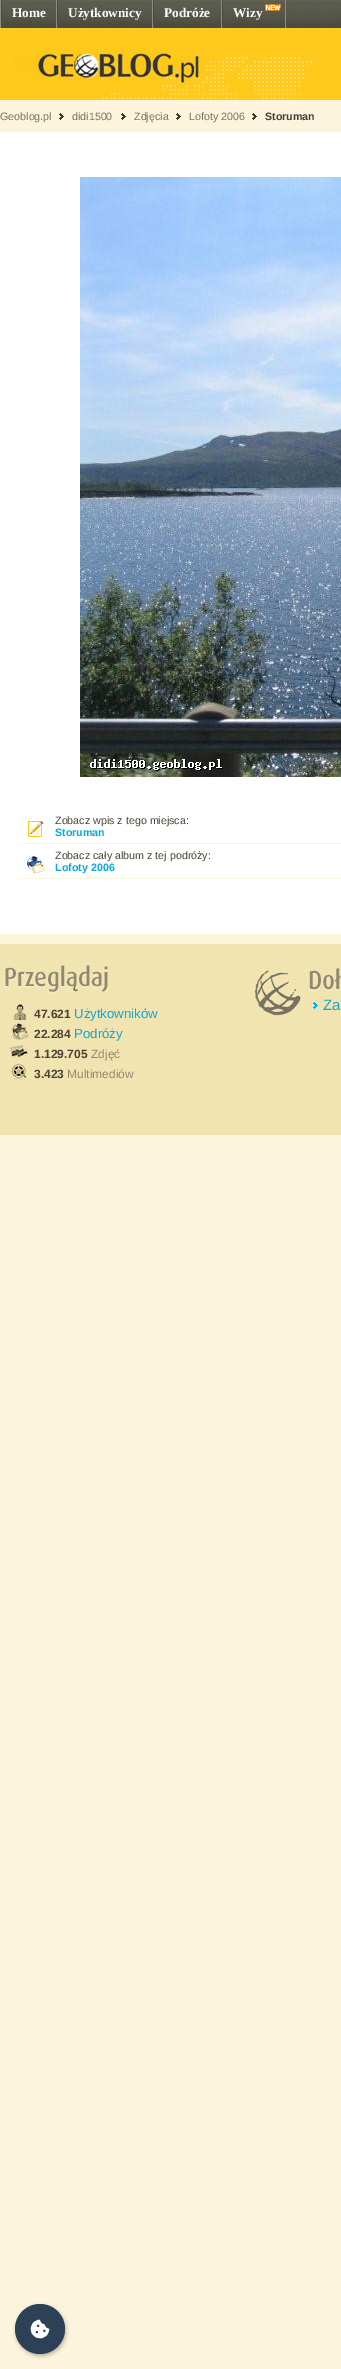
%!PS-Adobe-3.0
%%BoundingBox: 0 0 341 2369
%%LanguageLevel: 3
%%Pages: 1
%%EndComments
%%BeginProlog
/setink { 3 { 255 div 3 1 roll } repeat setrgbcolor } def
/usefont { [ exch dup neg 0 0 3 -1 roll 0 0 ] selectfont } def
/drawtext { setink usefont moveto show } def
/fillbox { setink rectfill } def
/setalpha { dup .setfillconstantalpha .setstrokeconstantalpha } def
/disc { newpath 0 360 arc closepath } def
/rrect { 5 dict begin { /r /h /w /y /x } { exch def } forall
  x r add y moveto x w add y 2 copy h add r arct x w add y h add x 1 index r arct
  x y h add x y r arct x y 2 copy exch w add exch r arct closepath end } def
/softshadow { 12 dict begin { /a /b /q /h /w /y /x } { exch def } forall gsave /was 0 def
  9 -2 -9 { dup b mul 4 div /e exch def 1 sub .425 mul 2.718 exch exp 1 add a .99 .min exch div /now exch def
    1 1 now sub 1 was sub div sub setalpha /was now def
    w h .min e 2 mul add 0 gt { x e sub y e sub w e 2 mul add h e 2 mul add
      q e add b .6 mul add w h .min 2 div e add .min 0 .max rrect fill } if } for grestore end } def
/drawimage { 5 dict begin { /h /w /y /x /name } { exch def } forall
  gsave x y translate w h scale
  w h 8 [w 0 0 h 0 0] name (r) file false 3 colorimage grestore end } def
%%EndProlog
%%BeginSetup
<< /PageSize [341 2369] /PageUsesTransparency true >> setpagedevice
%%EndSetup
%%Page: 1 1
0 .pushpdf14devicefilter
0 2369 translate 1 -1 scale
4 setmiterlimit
0 0 341 2369 252 244 221 fillbox
(assets/img1.rgb) 2 0 339 28 drawimage
0 0 1 28 140 141 131 fillbox
56 0 1 28 140 141 131 fillbox
1 0 1 28 73 74 65 fillbox
(Home) 12 17 /LiberationSerif-Bold 13.25 255 255 255 drawtext
152 0 1 28 140 141 131 fillbox
57 0 1 28 73 74 65 fillbox
(Użytkownicy) 68 17 /LiberationSerif-Bold 13.25 255 255 255 drawtext
221 0 1 28 140 141 131 fillbox
153 0 1 28 73 74 65 fillbox
(Podróże) 164 17 /LiberationSerif-Bold 13.25 255 255 255 drawtext
285 0 1 28 140 141 131 fillbox
222 0 1 28 73 74 65 fillbox
(Wizy) 233 17 /LiberationSerif-Bold 13.25 255 255 255 drawtext
(assets/img2.rgb) 265 4 16 7 drawimage
0 28 341 24 255 202 28 fillbox
(assets/img3.rgb) 0 52 341 48 drawimage
(Geoblog.pl) 0 120 /LiberationSans-Regular 10.7 118 118 92 drawtext
(assets/img4.rgb) 59 113 5 7 drawimage
(didi1500) 72 120 /LiberationSans-Regular 10.7 118 118 92 drawtext
(assets/img4.rgb) 121 113 5 7 drawimage
(Zdjęcia) 134 120 /LiberationSans-Regular 10.7 118 118 92 drawtext
(assets/img4.rgb) 176 113 5 7 drawimage
(Lofoty 2006) 189 120 /LiberationSans-Regular 10.7 118 118 92 drawtext
(assets/img4.rgb) 252 113 5 7 drawimage
(Storuman) 265 120 /LiberationSans-Bold 10.7 68 63 57 drawtext
0 132 341 802 255 255 255 fillbox
(assets/img5.rgb) 80 177 261 600 drawimage
20 843 321 1 250 245 223 fillbox
(assets/img6.rgb) 28 821 16 16 drawimage
(Zobacz wpis z tego miejsca:) 55 824 /LiberationSans-Regular 10.7 75 66 51 drawtext
(Storuman) 55 836 /LiberationSans-Bold 10.7 11 167 216 drawtext
20 878 321 1 250 245 223 fillbox
(assets/img7.rgb) 27 856 18 18 drawimage
(Zobacz cały album z tej podróży:) 55 859 /LiberationSans-Regular 10.7 75 66 51 drawtext
(Lofoty 2006) 55 871 /LiberationSans-Bold 10.7 11 167 216 drawtext
0 944 341 191 242 228 177 fillbox
(assets/img8.rgb) 252 966 52 52 drawimage
(assets/img9.rgb) 305 966 36 31 drawimage
(assets/img10.rgb) 310 1000 9 12 drawimage
(Za) 323 1010 /LiberationSans-Regular 15 11 167 216 drawtext
(assets/img11.rgb) 4 964 104 32 drawimage
(assets/img12.rgb) 11 1004 16 16 drawimage
(47.621) 34 1018 /LiberationSans-Bold 12 75 66 51 drawtext
(Użytkowników) 74 1018 /LiberationSans-Regular 13.25 11 167 216 drawtext
(assets/img13.rgb) 11 1023 18 17 drawimage
(22.284) 34 1038 /LiberationSans-Bold 12 75 66 51 drawtext
(Podróży) 74 1038 /LiberationSans-Regular 13.25 11 167 216 drawtext
(assets/img14.rgb) 10 1044 19 16 drawimage
(1.129.705) 34 1058 /LiberationSans-Bold 12 75 66 51 drawtext
(Zdjęć) 91 1058 /LiberationSans-Regular 12 146 136 106 drawtext
(assets/img15.rgb) 11 1063 16 17 drawimage
(3.423) 34 1078 /LiberationSans-Bold 12 75 66 51 drawtext
(Multimediów) 67 1078 /LiberationSans-Regular 12 146 136 106 drawtext
0 0 0 setink
16 2306 50 50 25 2 0.25 softshadow
45 65 86 setink
40 2329 25 disc fill
(assets/img16.rgb) 30 2319 20 20 drawimage
.poppdf14devicefilter showpage
%%EOF
